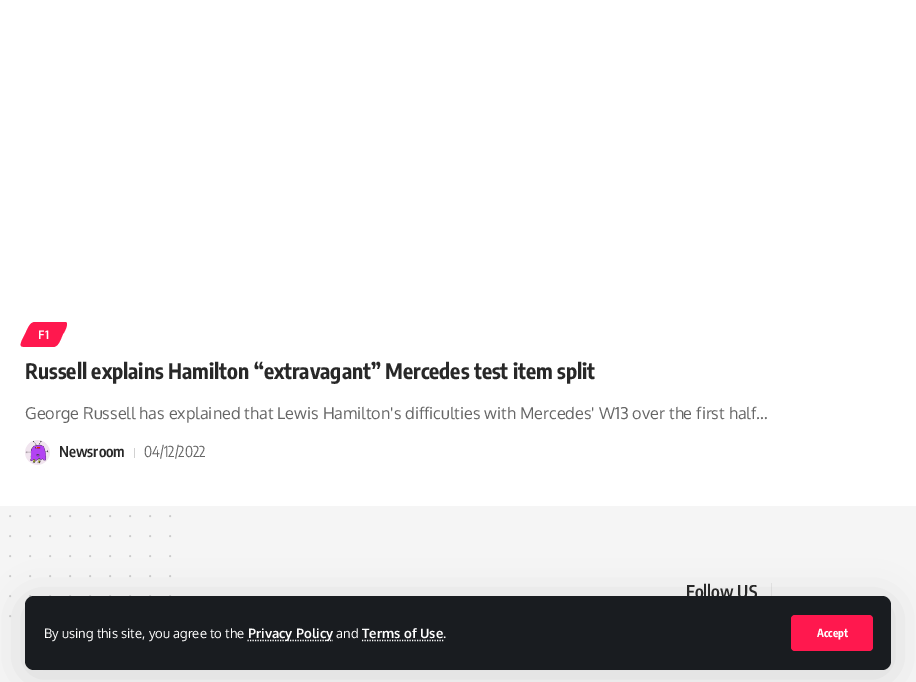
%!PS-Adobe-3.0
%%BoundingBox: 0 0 916 682
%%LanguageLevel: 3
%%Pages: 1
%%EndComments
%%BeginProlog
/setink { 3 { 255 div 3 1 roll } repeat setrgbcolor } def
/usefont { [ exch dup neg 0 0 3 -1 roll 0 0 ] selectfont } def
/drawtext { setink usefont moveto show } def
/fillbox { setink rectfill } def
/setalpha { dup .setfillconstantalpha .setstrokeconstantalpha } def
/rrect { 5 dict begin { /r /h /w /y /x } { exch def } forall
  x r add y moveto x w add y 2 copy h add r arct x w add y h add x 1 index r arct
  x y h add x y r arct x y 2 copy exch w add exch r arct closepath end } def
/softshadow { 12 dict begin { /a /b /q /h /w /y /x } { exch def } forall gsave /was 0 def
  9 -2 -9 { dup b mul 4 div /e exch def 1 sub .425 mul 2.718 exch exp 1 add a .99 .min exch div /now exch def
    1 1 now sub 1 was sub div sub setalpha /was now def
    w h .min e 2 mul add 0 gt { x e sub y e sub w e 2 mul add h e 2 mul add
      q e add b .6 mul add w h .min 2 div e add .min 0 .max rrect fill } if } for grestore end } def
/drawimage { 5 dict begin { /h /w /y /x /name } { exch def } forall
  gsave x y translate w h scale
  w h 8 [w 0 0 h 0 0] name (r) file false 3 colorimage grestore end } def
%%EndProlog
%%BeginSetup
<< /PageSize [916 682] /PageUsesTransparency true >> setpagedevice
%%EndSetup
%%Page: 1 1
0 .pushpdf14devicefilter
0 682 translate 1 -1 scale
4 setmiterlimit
0 0 916 682 255 255 255 fillbox
255 24 78 setink
35 322 moveto 66 322 lineto 69 324 64 333 63 334 curveto 61 338 59 347 53 347 curveto 28 347 lineto 21 347 19 347 22 340 curveto 26 332 lineto 28 328 30 322 35 322 curveto closepath fill
/Oxygen-Bold 12 usefont
255 255 255 setink
38 339 moveto 1 0 (F1) ashow
(Russell explains Hamilton “extravagant” Mercedes test item split) 25 379 /EncodeSansCondensed-Bold 21.25 40 40 40 drawtext
(George Russell has explained that Lewis Hamilton's difficulties with Mercedes' W13 over the first half…) 25 419 /Oxygen-Regular 16.25 102 102 102 drawtext
(assets/img1.rgb) 25 440 25 25 drawimage
(Newsroom) 59 457 /EncodeSansCondensed-SemiBold 15 40 40 40 drawtext
134 448 1 10 209 209 209 fillbox
(04/12/2022) 144 457 /EncodeSansCondensed-Regular 15 102 102 102 drawtext
0 506 916 176 245 245 245 fillbox
204 204 204 setink
1.9 setlinewidth
1 setlinecap
[0 20] 0 setdash
10 516.2 moveto 170.2 516.2 lineto stroke
10 536.2 moveto 170.2 536.2 lineto stroke
10 556.2 moveto 170.2 556.2 lineto stroke
10 576.2 moveto 170.2 576.2 lineto stroke
10 596.2 moveto 170.2 596.2 lineto stroke
10 616.2 moveto 170.2 616.2 lineto stroke
771 583 1 17 229 229 229 fillbox
(Follow US) 686 598 /EncodeSansCondensed-SemiBold 17.5 40 40 40 drawtext
0 0 0 setink
25 601 866 74 9 19 0.12 softshadow
25 28 32 setink
25 596 866 74 9 rrect fill
(By using this site, you agree to the) 44 638 /Oxygen-Regular 13.1 255 255 255 drawtext
1.2 setlinewidth
0 setlinecap
[1.25 1.25] 0 setdash
247.5 640.5 moveto 333 640.5 lineto stroke
(Privacy Policy) 248 638 /Oxygen-Bold 13.1 255 255 255 drawtext
(and) 336 638 /Oxygen-Regular 13.1 255 255 255 drawtext
(Terms of Use) 362 638 /Oxygen-Bold 13.1 255 255 255 drawtext
362 640.5 moveto 443.5 640.5 lineto stroke
(.) 443 638 /Oxygen-Regular 13.1 255 255 255 drawtext
255 24 78 setink
791 615 82 36 4 rrect fill
(Accept) 817 637 /EncodeSansCondensed-Bold 11 255 255 255 drawtext
.poppdf14devicefilter showpage
%%EOF
